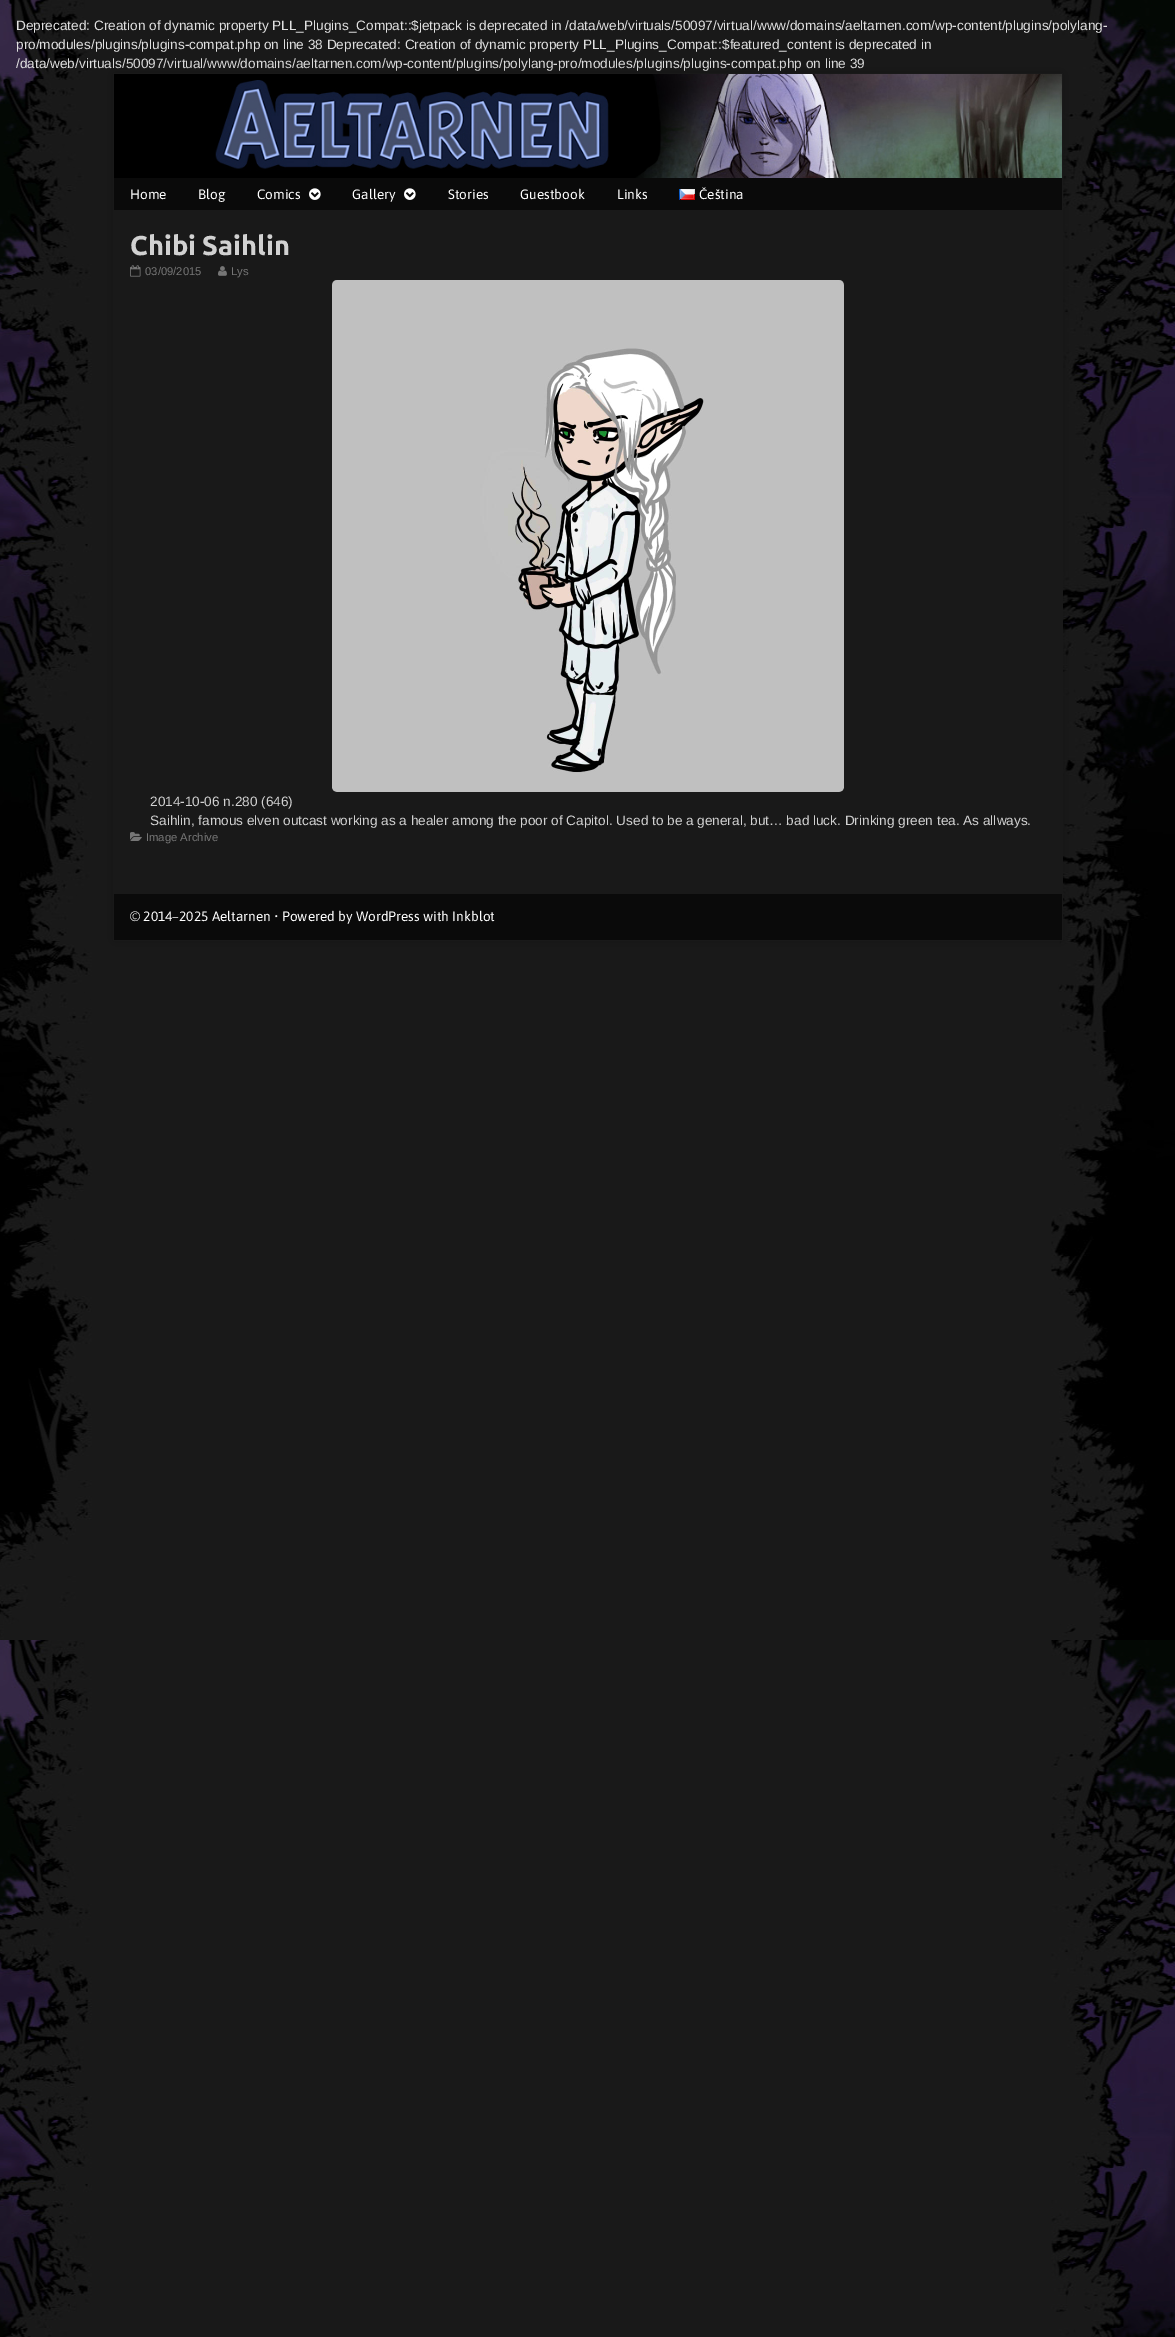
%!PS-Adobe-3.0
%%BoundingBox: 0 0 1175 2337
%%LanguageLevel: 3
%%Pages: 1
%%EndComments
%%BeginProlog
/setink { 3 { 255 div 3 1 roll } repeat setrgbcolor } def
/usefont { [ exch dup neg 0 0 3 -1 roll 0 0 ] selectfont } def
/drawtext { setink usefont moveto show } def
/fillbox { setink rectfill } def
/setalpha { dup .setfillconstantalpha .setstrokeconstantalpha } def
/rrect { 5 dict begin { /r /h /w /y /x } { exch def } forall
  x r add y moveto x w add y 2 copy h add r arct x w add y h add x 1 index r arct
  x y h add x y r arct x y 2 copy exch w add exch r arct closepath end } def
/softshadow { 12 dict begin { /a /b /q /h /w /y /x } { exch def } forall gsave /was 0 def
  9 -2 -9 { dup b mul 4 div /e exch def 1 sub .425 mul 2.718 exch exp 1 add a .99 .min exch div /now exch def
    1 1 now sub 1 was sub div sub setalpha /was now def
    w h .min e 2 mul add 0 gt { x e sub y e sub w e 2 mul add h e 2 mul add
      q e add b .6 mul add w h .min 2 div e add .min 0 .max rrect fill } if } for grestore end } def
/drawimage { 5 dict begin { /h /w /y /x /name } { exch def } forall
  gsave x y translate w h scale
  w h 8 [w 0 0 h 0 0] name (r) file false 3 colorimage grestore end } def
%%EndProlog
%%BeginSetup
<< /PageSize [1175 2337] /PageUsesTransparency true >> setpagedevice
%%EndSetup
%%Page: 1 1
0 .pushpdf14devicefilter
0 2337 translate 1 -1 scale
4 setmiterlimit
0 0 1175 2337 255 255 255 fillbox
(assets/img1.rgb) 0 0 1175 2337 drawimage
(Deprecated: Creation of dynamic property PLL_Plugins_Compat::$jetpack is deprecated in /data/web/virtuals/50097/virtual/www/domains/aeltarnen.com/wp-content/plugins/polylang-) 16 30 /LiberationSans-Regular 13.6 224 224 224 drawtext
(pro/modules/plugins/plugins-compat.php on line 38 Deprecated: Creation of dynamic property PLL_Plugins_Compat::$featured_content is deprecated in) 16 49 /LiberationSans-Regular 13.6 224 224 224 drawtext
(/data/web/virtuals/50097/virtual/www/domains/aeltarnen.com/wp-content/plugins/polylang-pro/modules/plugins/plugins-compat.php on line 39) 16 68 /LiberationSans-Regular 13.6 224 224 224 drawtext
0 0 0 setink
113 73 950 868 0 8 0.2 softshadow
113 73 950 868 25 25 25 fillbox
(assets/img2.rgb) 114 74 948 104 drawimage
114 178 948 32 10 10 10 fillbox
(Home) 130 199 /Asap-Regular 13.6 255 255 255 drawtext
(Blog) 198 199 /Asap-Regular 13.6 255 255 255 drawtext
(Comics) 257 199 /Asap-Regular 13.6 255 255 255 drawtext
(assets/img3.rgb) 309 188 12 12 drawimage
(Gallery) 352 199 /Asap-Regular 13.6 255 255 255 drawtext
(assets/img3.rgb) 404 188 12 12 drawimage
(Stories) 448 199 /Asap-Regular 13.6 255 255 255 drawtext
(Guestbook) 520 199 /Asap-Regular 13.6 255 255 255 drawtext
(Links) 617 199 /Asap-Regular 13.6 255 255 255 drawtext
(assets/img4.rgb) 679 189 16 11 drawimage
(Čeština) 699 199 /Asap-Regular 13.6 255 255 255 drawtext
(Chibi Saihlin) 130 255 /Ubuntu-Bold 27.25 209 209 209 drawtext
(assets/img5.rgb) 130 265 11 12 drawimage
(03/09/2015) 145 275 /LiberationSans-Regular 11.25 118 118 118 drawtext
(assets/img6.rgb) 218 266 9 10 drawimage
(Lys) 231 275 /LiberationSans-Regular 11.25 118 118 118 drawtext
(assets/img7.rgb) 332 280 512 512 drawimage
(2014-10-06 n.280 \(646\)) 150 806 /LiberationSans-Regular 13.6 209 209 209 drawtext
(Saihlin, famous elven outcast working as a healer among the poor of Capitol. Used to be a general, but… bad luck. Drinking green tea. As allways.) 150 825 /LiberationSans-Regular 13.6 209 209 209 drawtext
(assets/img8.rgb) 130 832 12 9 drawimage
(Image Archive) 146 841 /LiberationSans-Regular 11.25 118 118 118 drawtext
114 894 948 46 10 10 10 fillbox
(© 2014–2025 Aeltarnen • Powered by WordPress with Inkblot) 130 921 /Asap-Regular 13.6 255 255 255 drawtext
.poppdf14devicefilter showpage
%%EOF
